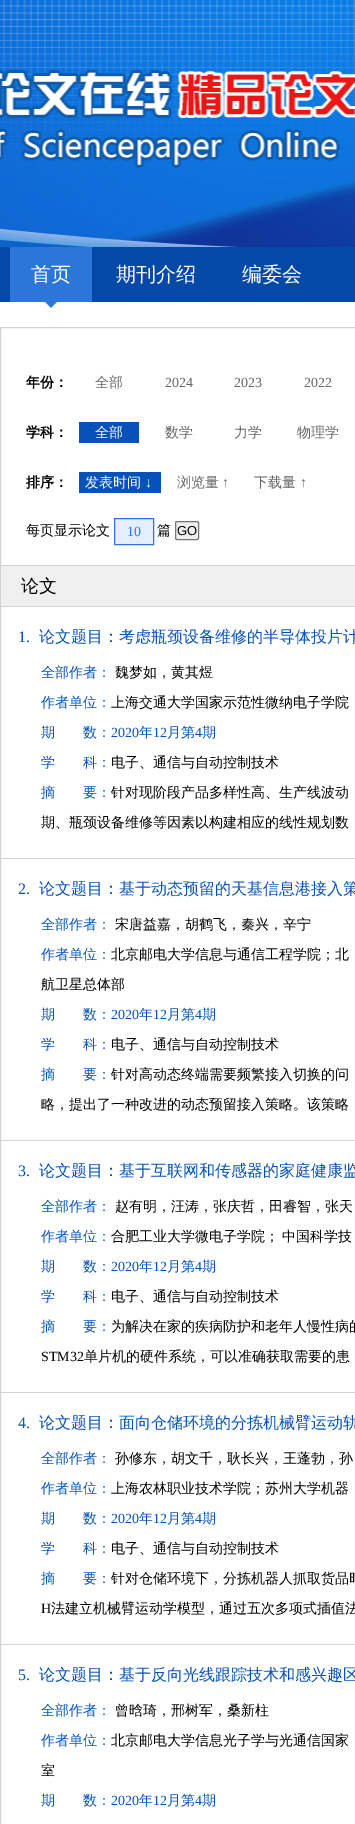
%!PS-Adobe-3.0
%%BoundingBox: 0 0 355 1824
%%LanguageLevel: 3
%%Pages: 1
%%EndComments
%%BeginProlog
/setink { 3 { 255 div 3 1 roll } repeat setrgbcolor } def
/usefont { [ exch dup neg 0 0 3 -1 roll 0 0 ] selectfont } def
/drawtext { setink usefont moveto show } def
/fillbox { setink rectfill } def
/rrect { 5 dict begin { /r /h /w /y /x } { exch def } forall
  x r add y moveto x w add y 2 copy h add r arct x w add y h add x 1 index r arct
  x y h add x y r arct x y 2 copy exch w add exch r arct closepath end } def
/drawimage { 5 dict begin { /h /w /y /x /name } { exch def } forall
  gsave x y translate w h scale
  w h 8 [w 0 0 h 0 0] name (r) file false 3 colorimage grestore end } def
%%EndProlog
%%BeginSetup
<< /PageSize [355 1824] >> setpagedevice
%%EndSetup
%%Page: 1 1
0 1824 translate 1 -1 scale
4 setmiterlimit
0 0 355 1824 255 255 255 fillbox
(assets/img1.rgb) 0 0 355 247 drawimage
0 247 355 55 4 73 166 fillbox
10 247 82 55 43 118 216 fillbox
(首页) 31 281 /WenQuanYiZenHei-Medium 20 255 255 255 drawtext
(assets/img2.rgb) 45 302 12 6 drawimage
(期刊介绍) 116 281 /WenQuanYiZenHei-Medium 20 255 255 255 drawtext
(编委会) 242 281 /WenQuanYiZenHei-Medium 20 255 255 255 drawtext
211 211 211 setink
0.5 327.5 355 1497 rectstroke
(年份：) 26 387 /WenQuanYiZenHei-Bold 14 0 0 0 drawtext
(全部) 95 387 /WenQuanYiZenHei-Medium 14 102 102 102 drawtext
(2024) 165 387 /LiberationSerif-Regular 14 102 102 102 drawtext
(2023) 234 387 /LiberationSerif-Regular 14 102 102 102 drawtext
(2022) 304 387 /LiberationSerif-Regular 14 102 102 102 drawtext
(学科：) 26 437 /WenQuanYiZenHei-Bold 14 0 0 0 drawtext
79 422 60 21 6 82 184 fillbox
(全部) 95 437 /WenQuanYiZenHei-Medium 14 255 255 255 drawtext
(数学) 165 437 /WenQuanYiZenHei-Medium 14 102 102 102 drawtext
(力学) 234 437 /WenQuanYiZenHei-Medium 14 102 102 102 drawtext
(物理学) 297 437 /WenQuanYiZenHei-Medium 14 102 102 102 drawtext
(排序：) 26 487 /WenQuanYiZenHei-Bold 14 0 0 0 drawtext
79 472 82 21 6 82 184 fillbox
(发表时间) 85 487 /WenQuanYiZenHei-Medium 14 255 255 255 drawtext
(↓) 145 487 /LiberationSerif-Regular 14 255 255 255 drawtext
(浏览量) 177 487 /WenQuanYiZenHei-Medium 14 102 102 102 drawtext
(↑) 222 487 /LiberationSerif-Regular 14 102 102 102 drawtext
(下载量) 254 487 /WenQuanYiZenHei-Medium 14 102 102 102 drawtext
(↑) 300 487 /LiberationSerif-Regular 14 102 102 102 drawtext
(每页显示论文) 26 535 /WenQuanYiZenHei-Medium 14 0 0 0 drawtext
226 239 255 setink
114.5 518.5 moveto 153.5 518.5 lineto 153.5 544.5 lineto 114.5 544.5 lineto closepath gsave fill grestore
43 118 216 setink
stroke
(10) 127 536 /LiberationSerif-Regular 14 43 118 216 drawtext
(篇) 157 535 /WenQuanYiZenHei-Medium 14 0 0 0 drawtext
239 239 239 setink
175.5 521.5 23 18 1.5 rrect gsave fill grestore
118 118 118 setink
stroke
(GO) 177 535 /LiberationSans-Regular 13 0 0 0 drawtext
1 566 354 40 240 240 240 fillbox
1 565 354 1 211 211 211 fillbox
1 606 354 1 211 211 211 fillbox
(论文) 21 592 /WenQuanYiZenHei-Medium 18 0 0 0 drawtext
(1.) 18 642 /LiberationSerif-Regular 16 6 82 184 drawtext
(论文题目：考虑瓶颈设备维修的半导体投片计) 39 642 /WenQuanYiZenHei-Medium 16 6 82 184 drawtext
(全部作者：) 41 677 /WenQuanYiZenHei-Medium 14 6 82 184 drawtext
(魏梦如，黄其煜) 115 677 /WenQuanYiZenHei-Medium 14 0 0 0 drawtext
(作者单位：) 41 707 /WenQuanYiZenHei-Medium 14 6 82 184 drawtext
(上海交通大学国家示范性微纳电子学院) 111 707 /WenQuanYiZenHei-Medium 14 0 0 0 drawtext
(期) 41 737 /WenQuanYiZenHei-Medium 14 6 82 184 drawtext
(数：) 83 737 /WenQuanYiZenHei-Medium 14 6 82 184 drawtext
(2020) 111 737 /LiberationSerif-Regular 14 6 82 184 drawtext
(年) 139 737 /WenQuanYiZenHei-Medium 14 6 82 184 drawtext
(12) 153 737 /LiberationSerif-Regular 14 6 82 184 drawtext
(月第) 167 737 /WenQuanYiZenHei-Medium 14 6 82 184 drawtext
(4) 195 737 /LiberationSerif-Regular 14 6 82 184 drawtext
(期) 202 737 /WenQuanYiZenHei-Medium 14 6 82 184 drawtext
(学) 41 767 /WenQuanYiZenHei-Medium 14 6 82 184 drawtext
(科：) 83 767 /WenQuanYiZenHei-Medium 14 6 82 184 drawtext
(电子、通信与自动控制技术) 111 767 /WenQuanYiZenHei-Medium 14 0 0 0 drawtext
(摘) 41 797 /WenQuanYiZenHei-Medium 14 6 82 184 drawtext
(要：) 83 797 /WenQuanYiZenHei-Medium 14 6 82 184 drawtext
(针对现阶段产品多样性高、生产线波动) 111 797 /WenQuanYiZenHei-Medium 14 0 0 0 drawtext
(期、瓶颈设备维修等因素以构建相应的线性规划数) 41 827 /WenQuanYiZenHei-Medium 14 0 0 0 drawtext
1 858 354 1 211 211 211 fillbox
(2.) 18 894 /LiberationSerif-Regular 16 6 82 184 drawtext
(论文题目：基于动态预留的天基信息港接入策) 39 894 /WenQuanYiZenHei-Medium 16 6 82 184 drawtext
(全部作者：) 41 929 /WenQuanYiZenHei-Medium 14 6 82 184 drawtext
(宋唐益嘉，胡鹤飞，秦兴，辛宁) 115 929 /WenQuanYiZenHei-Medium 14 0 0 0 drawtext
(作者单位：) 41 959 /WenQuanYiZenHei-Medium 14 6 82 184 drawtext
(北京邮电大学信息与通信工程学院；北) 111 959 /WenQuanYiZenHei-Medium 14 0 0 0 drawtext
(航卫星总体部) 41 989 /WenQuanYiZenHei-Medium 14 0 0 0 drawtext
(期) 41 1019 /WenQuanYiZenHei-Medium 14 6 82 184 drawtext
(数：) 83 1019 /WenQuanYiZenHei-Medium 14 6 82 184 drawtext
(2020) 111 1019 /LiberationSerif-Regular 14 6 82 184 drawtext
(年) 139 1019 /WenQuanYiZenHei-Medium 14 6 82 184 drawtext
(12) 153 1019 /LiberationSerif-Regular 14 6 82 184 drawtext
(月第) 167 1019 /WenQuanYiZenHei-Medium 14 6 82 184 drawtext
(4) 195 1019 /LiberationSerif-Regular 14 6 82 184 drawtext
(期) 202 1019 /WenQuanYiZenHei-Medium 14 6 82 184 drawtext
(学) 41 1049 /WenQuanYiZenHei-Medium 14 6 82 184 drawtext
(科：) 83 1049 /WenQuanYiZenHei-Medium 14 6 82 184 drawtext
(电子、通信与自动控制技术) 111 1049 /WenQuanYiZenHei-Medium 14 0 0 0 drawtext
(摘) 41 1079 /WenQuanYiZenHei-Medium 14 6 82 184 drawtext
(要：) 83 1079 /WenQuanYiZenHei-Medium 14 6 82 184 drawtext
(针对高动态终端需要频繁接入切换的问) 111 1079 /WenQuanYiZenHei-Medium 14 0 0 0 drawtext
(略，提出了一种改进的动态预留接入策略。该策略) 41 1109 /WenQuanYiZenHei-Medium 14 0 0 0 drawtext
1 1140 354 1 211 211 211 fillbox
(3.) 18 1176 /LiberationSerif-Regular 16 6 82 184 drawtext
(论文题目：基于互联网和传感器的家庭健康监) 39 1176 /WenQuanYiZenHei-Medium 16 6 82 184 drawtext
(全部作者：) 41 1211 /WenQuanYiZenHei-Medium 14 6 82 184 drawtext
(赵有明，汪涛，张庆哲，田睿智，张天) 115 1211 /WenQuanYiZenHei-Medium 14 0 0 0 drawtext
(作者单位：) 41 1241 /WenQuanYiZenHei-Medium 14 6 82 184 drawtext
0 0 0 setink
111 1241 moveto -1 0 32 (合肥工业大学微电子学院； 中国科学技) widthshow
(期) 41 1271 /WenQuanYiZenHei-Medium 14 6 82 184 drawtext
(数：) 83 1271 /WenQuanYiZenHei-Medium 14 6 82 184 drawtext
(2020) 111 1271 /LiberationSerif-Regular 14 6 82 184 drawtext
(年) 139 1271 /WenQuanYiZenHei-Medium 14 6 82 184 drawtext
(12) 153 1271 /LiberationSerif-Regular 14 6 82 184 drawtext
(月第) 167 1271 /WenQuanYiZenHei-Medium 14 6 82 184 drawtext
(4) 195 1271 /LiberationSerif-Regular 14 6 82 184 drawtext
(期) 202 1271 /WenQuanYiZenHei-Medium 14 6 82 184 drawtext
(学) 41 1301 /WenQuanYiZenHei-Medium 14 6 82 184 drawtext
(科：) 83 1301 /WenQuanYiZenHei-Medium 14 6 82 184 drawtext
(电子、通信与自动控制技术) 111 1301 /WenQuanYiZenHei-Medium 14 0 0 0 drawtext
(摘) 41 1331 /WenQuanYiZenHei-Medium 14 6 82 184 drawtext
(要：) 83 1331 /WenQuanYiZenHei-Medium 14 6 82 184 drawtext
(为解决在家的疾病防护和老年人慢性病的) 111 1331 /WenQuanYiZenHei-Medium 14 0 0 0 drawtext
(STM32) 41 1361 /LiberationSerif-Regular 14 0 0 0 drawtext
(单片机的硬件系统，可以准确获取需要的患) 84 1361 /WenQuanYiZenHei-Medium 14 0 0 0 drawtext
1 1392 354 1 211 211 211 fillbox
(4.) 18 1428 /LiberationSerif-Regular 16 6 82 184 drawtext
(论文题目：面向仓储环境的分拣机械臂运动轨) 39 1428 /WenQuanYiZenHei-Medium 16 6 82 184 drawtext
(全部作者：) 41 1463 /WenQuanYiZenHei-Medium 14 6 82 184 drawtext
(孙修东，胡文千，耿长兴，王蓬勃，孙) 115 1463 /WenQuanYiZenHei-Medium 14 0 0 0 drawtext
(作者单位：) 41 1493 /WenQuanYiZenHei-Medium 14 6 82 184 drawtext
(上海农林职业技术学院；苏州大学机器) 111 1493 /WenQuanYiZenHei-Medium 14 0 0 0 drawtext
(期) 41 1523 /WenQuanYiZenHei-Medium 14 6 82 184 drawtext
(数：) 83 1523 /WenQuanYiZenHei-Medium 14 6 82 184 drawtext
(2020) 111 1523 /LiberationSerif-Regular 14 6 82 184 drawtext
(年) 139 1523 /WenQuanYiZenHei-Medium 14 6 82 184 drawtext
(12) 153 1523 /LiberationSerif-Regular 14 6 82 184 drawtext
(月第) 167 1523 /WenQuanYiZenHei-Medium 14 6 82 184 drawtext
(4) 195 1523 /LiberationSerif-Regular 14 6 82 184 drawtext
(期) 202 1523 /WenQuanYiZenHei-Medium 14 6 82 184 drawtext
(学) 41 1553 /WenQuanYiZenHei-Medium 14 6 82 184 drawtext
(科：) 83 1553 /WenQuanYiZenHei-Medium 14 6 82 184 drawtext
(电子、通信与自动控制技术) 111 1553 /WenQuanYiZenHei-Medium 14 0 0 0 drawtext
(摘) 41 1583 /WenQuanYiZenHei-Medium 14 6 82 184 drawtext
(要：) 83 1583 /WenQuanYiZenHei-Medium 14 6 82 184 drawtext
(针对仓储环境下，分拣机器人抓取货品时) 111 1583 /WenQuanYiZenHei-Medium 14 0 0 0 drawtext
(H) 41 1613 /LiberationSerif-Regular 14 0 0 0 drawtext
(法建立机械臂运动学模型，通过五次多项式插值法) 51 1613 /WenQuanYiZenHei-Medium 14 0 0 0 drawtext
1 1644 354 1 211 211 211 fillbox
(5.) 18 1680 /LiberationSerif-Regular 16 6 82 184 drawtext
(论文题目：基于反向光线跟踪技术和感兴趣区) 39 1680 /WenQuanYiZenHei-Medium 16 6 82 184 drawtext
(全部作者：) 41 1715 /WenQuanYiZenHei-Medium 14 6 82 184 drawtext
(曾晗琦，邢树军，桑新柱) 115 1715 /WenQuanYiZenHei-Medium 14 0 0 0 drawtext
(作者单位：) 41 1745 /WenQuanYiZenHei-Medium 14 6 82 184 drawtext
(北京邮电大学信息光子学与光通信国家) 111 1745 /WenQuanYiZenHei-Medium 14 0 0 0 drawtext
(室) 41 1775 /WenQuanYiZenHei-Medium 14 0 0 0 drawtext
(期) 41 1805 /WenQuanYiZenHei-Medium 14 6 82 184 drawtext
(数：) 83 1805 /WenQuanYiZenHei-Medium 14 6 82 184 drawtext
(2020) 111 1805 /LiberationSerif-Regular 14 6 82 184 drawtext
(年) 139 1805 /WenQuanYiZenHei-Medium 14 6 82 184 drawtext
(12) 153 1805 /LiberationSerif-Regular 14 6 82 184 drawtext
(月第) 167 1805 /WenQuanYiZenHei-Medium 14 6 82 184 drawtext
(4) 195 1805 /LiberationSerif-Regular 14 6 82 184 drawtext
(期) 202 1805 /WenQuanYiZenHei-Medium 14 6 82 184 drawtext
showpage
%%EOF
